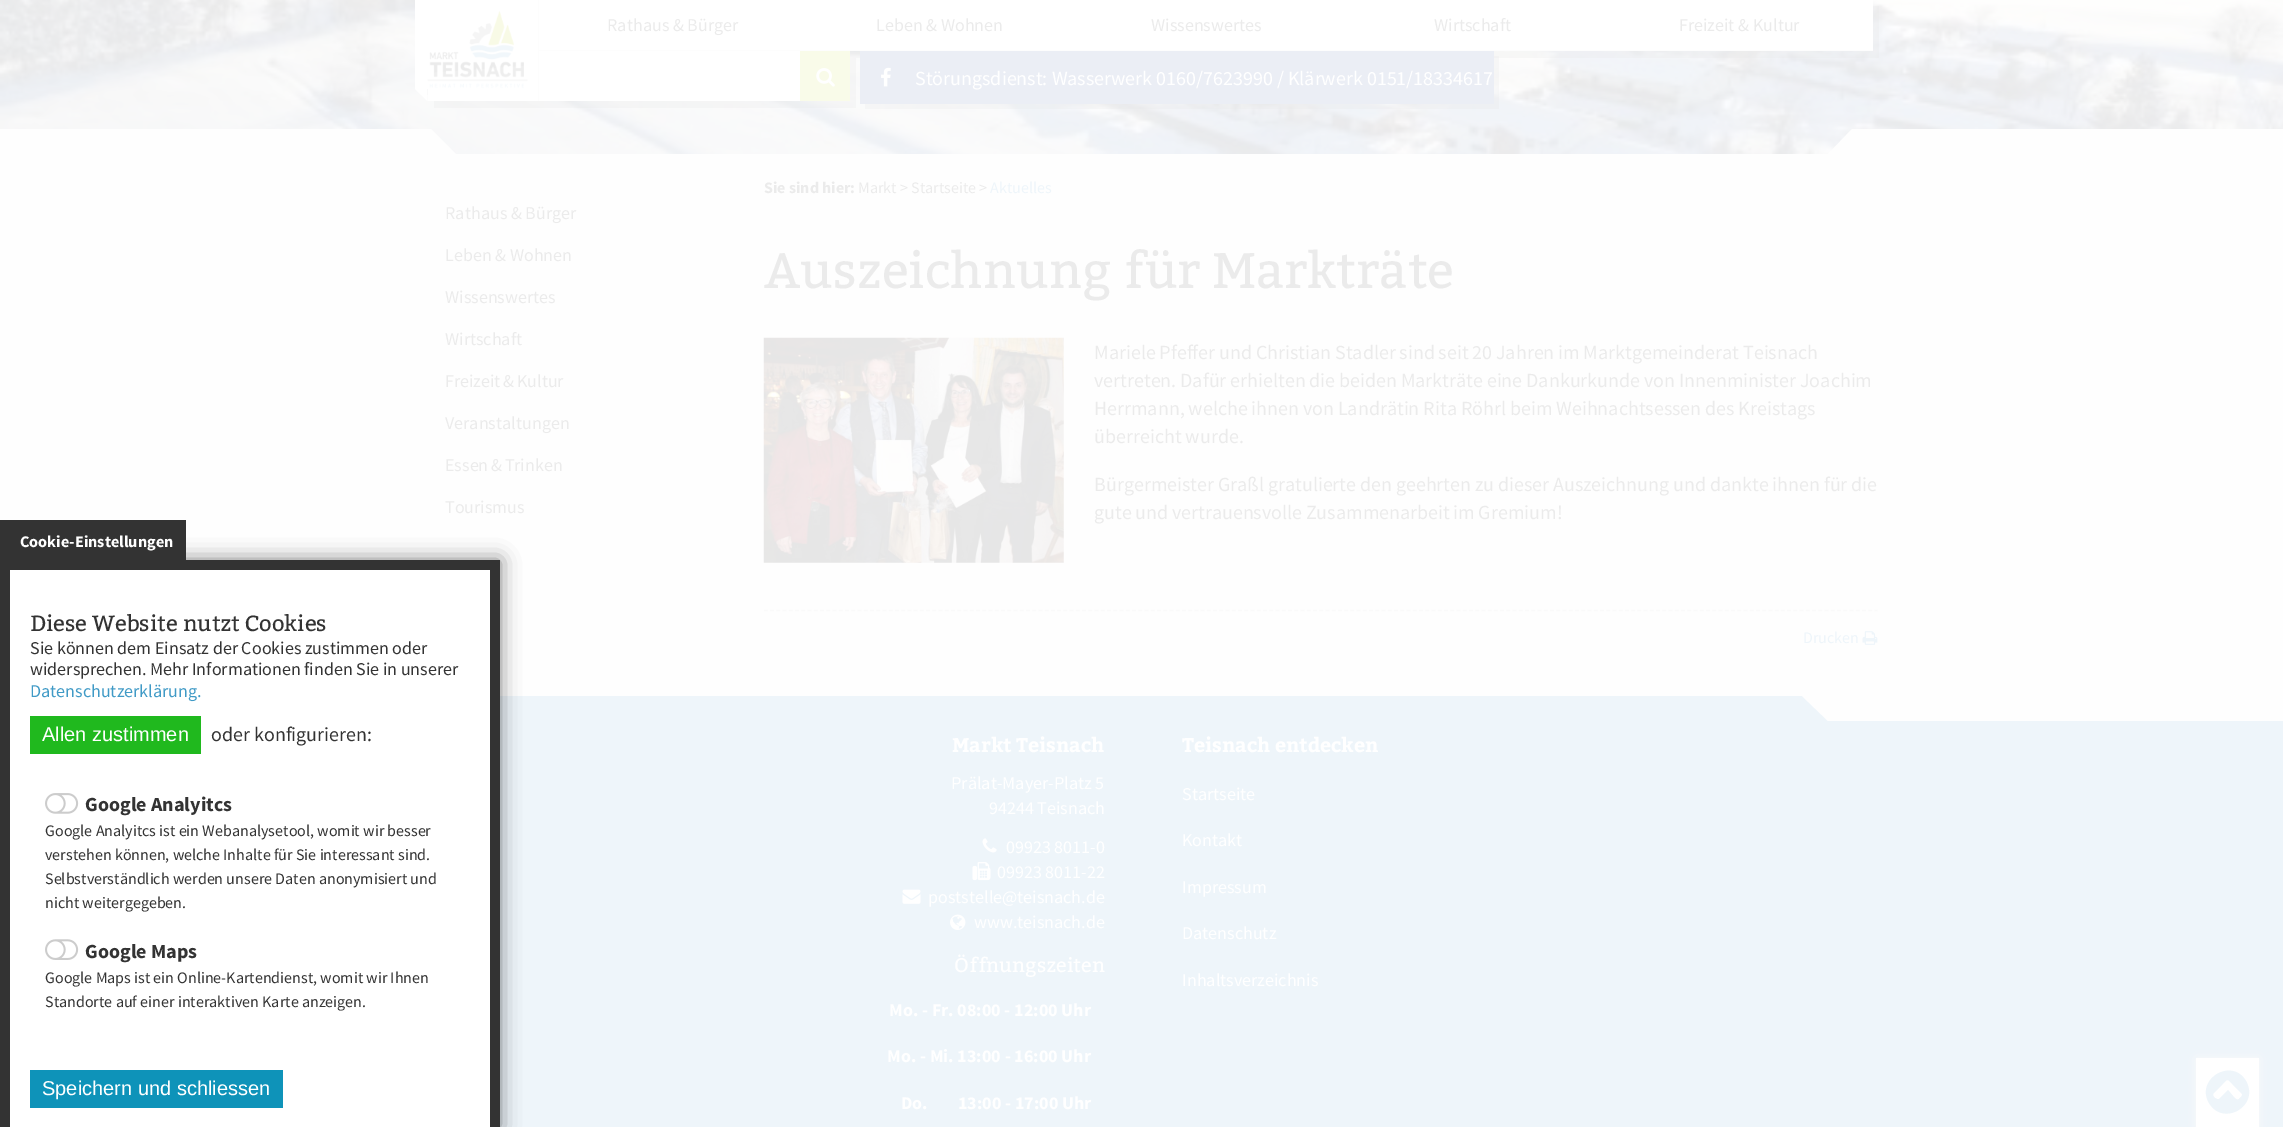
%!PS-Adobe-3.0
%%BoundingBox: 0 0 2283 1127
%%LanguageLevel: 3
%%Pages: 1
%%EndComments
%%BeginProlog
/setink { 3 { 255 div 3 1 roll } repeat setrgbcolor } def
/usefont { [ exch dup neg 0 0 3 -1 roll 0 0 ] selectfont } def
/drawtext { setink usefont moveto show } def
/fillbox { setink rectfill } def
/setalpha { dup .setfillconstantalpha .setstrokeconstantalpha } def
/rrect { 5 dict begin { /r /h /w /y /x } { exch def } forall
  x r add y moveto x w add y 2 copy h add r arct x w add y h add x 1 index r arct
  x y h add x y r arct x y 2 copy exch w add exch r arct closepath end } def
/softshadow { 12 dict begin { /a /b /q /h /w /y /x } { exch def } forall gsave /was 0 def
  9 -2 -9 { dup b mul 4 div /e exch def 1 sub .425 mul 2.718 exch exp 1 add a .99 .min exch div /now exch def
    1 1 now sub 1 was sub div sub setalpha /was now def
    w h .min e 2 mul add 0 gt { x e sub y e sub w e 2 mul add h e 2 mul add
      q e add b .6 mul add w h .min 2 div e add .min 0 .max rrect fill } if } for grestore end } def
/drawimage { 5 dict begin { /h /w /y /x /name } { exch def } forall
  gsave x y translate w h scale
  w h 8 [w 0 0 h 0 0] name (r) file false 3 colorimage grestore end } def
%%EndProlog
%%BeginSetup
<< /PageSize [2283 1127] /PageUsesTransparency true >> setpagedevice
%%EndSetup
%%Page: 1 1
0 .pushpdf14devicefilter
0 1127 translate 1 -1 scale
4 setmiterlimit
0 0 2283 1127 254 254 254 fillbox
500 696 1783 431 238 245 250 fillbox
0 0 0 setink
0 560 500 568 0 10 0.5 softshadow
10 570 480 557 255 255 255 fillbox
10 560 480 10 51 51 51 fillbox
490 560 10 567 51 51 51 fillbox
0 560 10 567 51 51 51 fillbox
0 520 186 40 51 51 51 fillbox
(Cookie-Einstellungen) 20 547 /SourceSansPro-Bold 16.25 255 255 255 drawtext
(Diese Website nutzt Cookies) 30 631 /Bitter-Regular 22 51 51 51 drawtext
(Sie können dem Einsatz der Cookies zustimmen oder) 30 654 /SourceSansPro-Regular 18 51 51 51 drawtext
(widersprechen. Mehr Informationen finden Sie in unserer) 30 675 /SourceSansPro-Regular 18 51 51 51 drawtext
(Datenschutzerklärung.) 30 697 /SourceSansPro-Regular 18 64 154 198 drawtext
30 716 171 38 32 185 30 fillbox
(Allen zustimmen) 42 741 /LiberationSans-Regular 20 255 255 255 drawtext
(oder konfigurieren:) 211 741 /SourceSansPro-Regular 20 51 51 51 drawtext
(assets/img1.rgb) 45 793 34 21 drawimage
(Google Analyitcs) 85 811 /SourceSansPro-Bold 20 51 51 51 drawtext
(Google Analyitcs ist ein Webanalysetool, womit wir besser) 45 836 /SourceSansPro-Regular 16 51 51 51 drawtext
(verstehen können, welche Inhalte für Sie interessant sind.) 45 860 /SourceSansPro-Regular 16 51 51 51 drawtext
(Selbstverständlich werden unsere Daten anonymisiert und) 45 884 /SourceSansPro-Regular 16 51 51 51 drawtext
(nicht weitergegeben.) 45 908 /SourceSansPro-Regular 16 51 51 51 drawtext
(assets/img2.rgb) 45 939 34 21 drawimage
(Google Maps) 85 958 /SourceSansPro-Bold 20 51 51 51 drawtext
(Google Maps ist ein Online-Kartendienst, womit wir Ihnen) 45 983 /SourceSansPro-Regular 16 51 51 51 drawtext
(Standorte auf einer interaktiven Karte anzeigen.) 45 1007 /SourceSansPro-Regular 16 51 51 51 drawtext
30 1070 253 38 14 147 185 fillbox
(Speichern und schliessen) 42 1095 /LiberationSans-Regular 20 255 255 255 drawtext
(assets/img6.rgb) 0 0 2283 154 drawimage
0.25 setalpha
230 230 230 setink
421 89 moveto 421 95 lineto 545 95 lineto 545 6 lineto 539 6 lineto 539 89 lineto closepath fill
1 setalpha
415 0 123 89 255 255 255 fillbox
(assets/img3.rgb) 427 11 101 78 drawimage
415 89 moveto 427.5 89 lineto 427.5 101 lineto closepath fill
0.25 setalpha
230 230 230 setink
434 101 moveto 434 108 lineto 545 108 lineto 545 95 lineto 539 95 lineto 539 101 lineto closepath fill
1 setalpha
428 89 110 12 255 255 255 fillbox
0.25 setalpha
230 230 230 setink
544 51 moveto 544 58 lineto 1879 58 lineto 1879 6 lineto 1872 6 lineto 1872 51 lineto closepath fill
1 setalpha
539 0 1334 50 255 255 255 fillbox
538 50 1335 1 253 253 253 fillbox
538 0 1 101 253 253 253 fillbox
(Rathaus & Bürger) 607 31 /SourceSansPro-Regular 18 235 235 235 drawtext
(Leben & Wohnen) 876 31 /SourceSansPro-Regular 18 235 235 235 drawtext
(Wissenswertes) 1151 31 /SourceSansPro-Regular 18 235 235 235 drawtext
(Wirtschaft) 1434 31 /SourceSansPro-Regular 18 235 235 235 drawtext
(Freizeit & Kultur) 1679 31 /SourceSansPro-Regular 18 235 235 235 drawtext
0.25 setalpha
230 230 230 setink
545 101 moveto 545 108 lineto 856 108 lineto 856 58 lineto 850 58 lineto 850 101 lineto closepath fill
1 setalpha
539 51 261 50 255 255 255 fillbox
800 51 50 50 249 251 233 fillbox
(assets/img4.rgb) 816 68 19 19 drawimage
0.25 setalpha
230 230 230 setink
865 104 moveto 865 109 lineto 1499 109 lineto 1499 56 lineto 1494 56 lineto 1494 104 lineto closepath fill
1 setalpha
860 51 634 53 235 238 245 fillbox
(assets/img5.rgb) 881 67 10 20 drawimage
(Störungsdienst: Wasserwerk 0160/7623990 / Klärwerk 0151/18334617) 915 85 /SourceSansPro-Regular 20 255 255 255 drawtext
254 254 254 setink
456 154 moveto 0 154 lineto 0 129 lineto 431 129 lineto closepath fill
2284 154 moveto 1828 154 lineto 1852 129 lineto 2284 129 lineto closepath fill
(Rathaus & Bürger) 445 219 /SourceSansPro-Regular 18 235 235 235 drawtext
(Leben & Wohnen) 445 261 /SourceSansPro-Regular 18 235 235 235 drawtext
(Wissenswertes) 445 303 /SourceSansPro-Regular 18 235 235 235 drawtext
(Wirtschaft) 445 345 /SourceSansPro-Regular 18 235 235 235 drawtext
445 387 moveto -1 0 32 (Freizeit & Kultur) widthshow
(Veranstaltungen) 445 429 /SourceSansPro-Regular 18 235 235 235 drawtext
445 471 moveto -1 0 32 (Essen & Trinken) widthshow
(Tourismus) 445 513 /SourceSansPro-Regular 18 235 235 235 drawtext
(Sie sind hier:) 764 193 /SourceSansPro-Bold 16 235 235 235 drawtext
(Markt > Startseite) 858 193 /SourceSansPro-Regular 16 235 235 235 drawtext
(>) 979 193 /SourceSansPro-Regular 16 235 235 235 drawtext
(Aktuelles) 990 193 /SourceSansPro-Regular 16 238 245 250 drawtext
(Auszeichnung für Markträte) 764 288 /Bitter-Regular 50 235 235 235 drawtext
(assets/img7.rgb) 763 337 301 226 drawimage
/SourceSansPro-Regular 20 usefont
1094 359 moveto -0.25 0 32 (Mariele Pfeffer und Christian Stadler sind seit 20 Jahren im Marktgemeinderat Teisnach) widthshow
1094 387 moveto -0.25 0 32 (vertreten. Dafür erhielten die beiden Markträte eine Dankurkunde von Innenminister Joachim) widthshow
1094 415 moveto -0.25 0 32 (Herrmann, welche ihnen von Landrätin Rita Röhrl beim Weihnachtsessen des Kreistags) widthshow
(überreicht wurde.) 1094 443 /SourceSansPro-Regular 20 235 235 235 drawtext
1094 491 moveto -0.25 0 32 (Bürgermeister Graßl gratulierte den geehrten zu dieser Auszeichnung und dankte ihnen für die) widthshow
1094 519 moveto -0.5 0 32 (gute und vertrauensvolle Zusammenarbeit im Gremium!) widthshow
250 250 250 setink
1.2 setlinewidth
[3.75 2.49] 0 setdash
764 610.5 moveto 1877.5 610.5 lineto stroke
(Drucken) 1803 643 /SourceSansPro-Regular 16 238 245 250 drawtext
(assets/img8.rgb) 1862 631 16 14 drawimage
250 250 250 setink
2196 1058 63 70 0 6 1 softshadow
2196 1058 63 69 255 255 255 fillbox
238 245 250 setink
2239 1099 moveto 2244 1094 2243 1095 2237 1089 curveto 2225 1077 2230 1077 2218 1089 curveto 2214 1093 2211 1094 2215 1098 curveto 2216 1098 2217 1100 2219 1099 curveto 2228 1090 lineto 2233 1096 lineto 2234 1097 2237 1101 2239 1099 curveto closepath 2246 1081 moveto 2260 1106 2223 1127 2209 1103 curveto 2195 1079 2232 1057 2246 1081 curveto closepath fill
254 254 254 setink
1802 696 moveto 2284 696 lineto 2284 721 lineto 1828 721 lineto closepath fill
(Markt Teisnach) 952 752 /Bitter-Bold 19.75 255 255 255 drawtext
(Prälat-Mayer-Platz 5) 951 789 /SourceSansPro-Regular 18 255 255 255 drawtext
(94244 Teisnach) 989 814 /SourceSansPro-Regular 18 255 255 255 drawtext
(assets/img9.rgb) 982 838 15 15 drawimage
(09923 8011-0) 1006 853 /SourceSansPro-Regular 18 255 255 255 drawtext
(assets/img10.rgb) 972 862 19 19 drawimage
(09923 8011-22) 997 878 /SourceSansPro-Regular 18 255 255 255 drawtext
(assets/img11.rgb) 902 889 19 15 drawimage
(poststelle@teisnach.de) 928 903 /SourceSansPro-Regular 18 255 255 255 drawtext
(assets/img12.rgb) 950 914 16 16 drawimage
(www.teisnach.de) 974 928 /SourceSansPro-Regular 18 255 255 255 drawtext
(Öffnungszeiten) 954 972 /Bitter-Regular 19.75 255 255 255 drawtext
(Mo. - Fr. 08:00 - 12:00 Uhr) 889 1016 /SourceSansPro-Bold 18 255 255 255 drawtext
(Mo. - Mi. 13:00 - 16:00 Uhr) 887 1062 /SourceSansPro-Bold 18 255 255 255 drawtext
(Do.        13:00 - 17:00 Uhr) 901 1109 /SourceSansPro-Bold 18 255 255 255 drawtext
(Teisnach entdecken) 1182 752 /Bitter-Bold 19.75 255 255 255 drawtext
(Startseite) 1182 800 /SourceSansPro-Regular 18 255 255 255 drawtext
(Kontakt) 1182 846 /SourceSansPro-Regular 18 255 255 255 drawtext
(Impressum) 1182 893 /SourceSansPro-Regular 18 255 255 255 drawtext
(Datenschutz) 1182 939 /SourceSansPro-Regular 18 255 255 255 drawtext
(Inhaltsverzeichnis) 1182 986 /SourceSansPro-Regular 18 255 255 255 drawtext
.poppdf14devicefilter showpage
%%EOF
